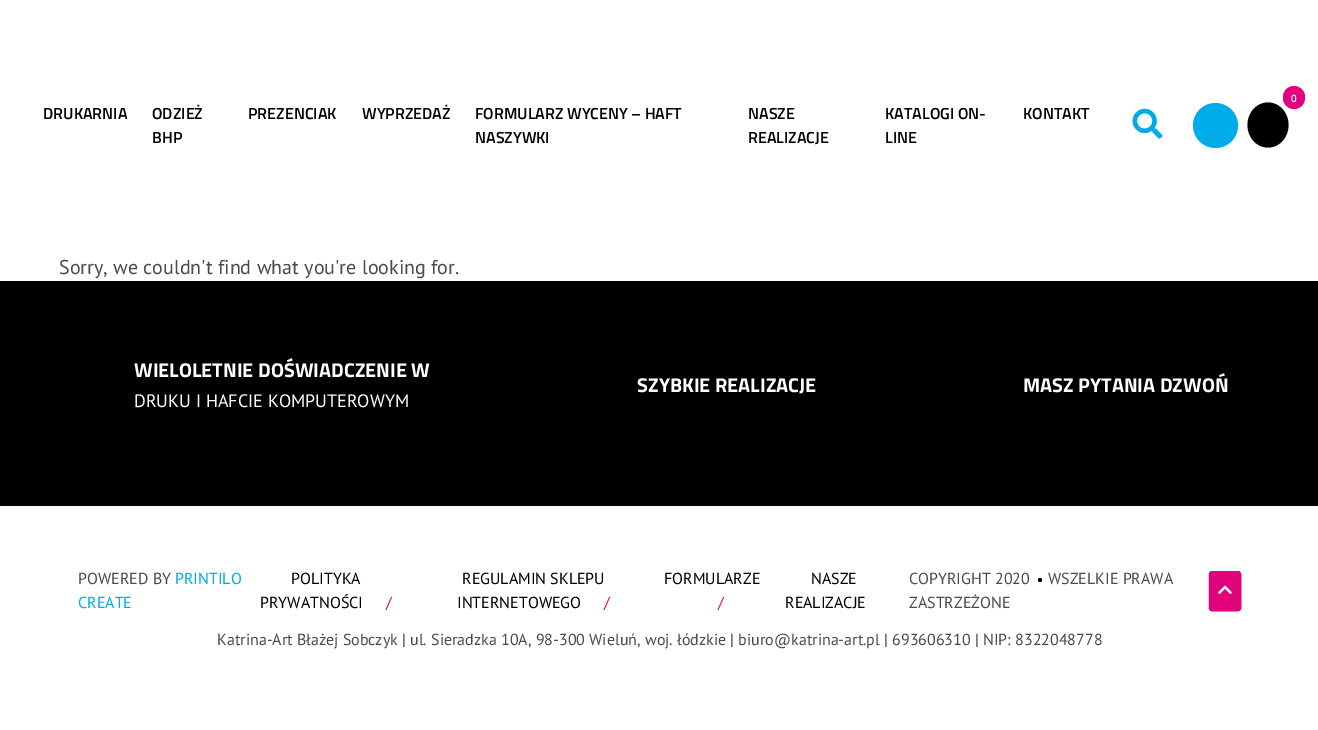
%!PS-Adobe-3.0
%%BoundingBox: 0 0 1318 730
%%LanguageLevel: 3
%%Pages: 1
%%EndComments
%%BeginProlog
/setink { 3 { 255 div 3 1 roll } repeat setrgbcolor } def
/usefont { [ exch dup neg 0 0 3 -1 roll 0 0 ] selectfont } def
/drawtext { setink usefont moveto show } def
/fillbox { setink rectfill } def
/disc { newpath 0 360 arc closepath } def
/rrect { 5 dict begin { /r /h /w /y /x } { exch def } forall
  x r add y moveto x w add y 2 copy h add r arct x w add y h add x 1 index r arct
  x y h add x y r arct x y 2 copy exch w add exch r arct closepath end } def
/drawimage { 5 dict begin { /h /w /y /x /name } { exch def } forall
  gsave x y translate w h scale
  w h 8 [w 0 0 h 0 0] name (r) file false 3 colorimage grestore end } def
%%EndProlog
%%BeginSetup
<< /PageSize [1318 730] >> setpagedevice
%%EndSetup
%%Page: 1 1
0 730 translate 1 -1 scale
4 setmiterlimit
0 0 1318 730 255 255 255 fillbox
0 0 0 setink
1268 102.5 moveto 1279.5 102.5 1288.5 112.5 1288.5 125 curveto 1288.5 137.5 1279.5 147.5 1268 147.5 curveto 1256.5 147.5 1247.5 137.5 1247.5 125 curveto 1247.5 112.5 1256.5 102.5 1268 102.5 curveto closepath fill
224 3 123 setink
1283 86 22 23 11 rrect fill
(0) 1291 102 /PTSans-Bold 10 255 255 255 drawtext
(DRUKARNIA) 43 119 /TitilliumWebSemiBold-SemiBold 16 0 0 0 drawtext
(ODZIEŻ) 152 119 /TitilliumWebSemiBold-SemiBold 16 0 0 0 drawtext
(BHP) 152 143 /TitilliumWebSemiBold-SemiBold 16 0 0 0 drawtext
(PREZENCIAK) 248 119 /TitilliumWebSemiBold-SemiBold 16 0 0 0 drawtext
(WYPRZEDAŻ) 362 119 /TitilliumWebSemiBold-SemiBold 16 0 0 0 drawtext
(FORMULARZ WYCENY – HAFT) 475 119 /TitilliumWebSemiBold-SemiBold 16 0 0 0 drawtext
(NASZYWKI) 475 143 /TitilliumWebSemiBold-SemiBold 16 0 0 0 drawtext
(NASZE) 748 119 /TitilliumWebSemiBold-SemiBold 16 0 0 0 drawtext
(REALIZACJE) 748 143 /TitilliumWebSemiBold-SemiBold 16 0 0 0 drawtext
(KATALOGI ON-) 885 119 /TitilliumWebSemiBold-SemiBold 16 0 0 0 drawtext
(LINE) 885 143 /TitilliumWebSemiBold-SemiBold 16 0 0 0 drawtext
(KONTAKT) 1023 119 /TitilliumWebSemiBold-SemiBold 16 0 0 0 drawtext
(assets/img1.rgb) 1132 108 31 31 drawimage
0 171 233 setink
1215.5 125.5 22.5 disc fill
(Sorry, we couldn't find what you're looking for.) 59 274 /PTSans-Regular 20 75 75 75 drawtext
0 281 1318 225 0 0 0 fillbox
(WIELOLETNIE DOŚWIADCZENIE W) 134 377 /TitilliumWeb-Bold 20 255 255 255 drawtext
(DRUKU I HAFCIE KOMPUTEROWYM) 134 407 /PTSans-Regular 18 255 255 255 drawtext
(SZYBKIE REALIZACJE) 637 392 /TitilliumWeb-Bold 20 255 255 255 drawtext
(MASZ PYTANIA DZWOŃ) 1023 392 /TitilliumWeb-Bold 20 255 255 255 drawtext
(POWERED BY) 78 584 /PTSans-Regular 16 75 75 75 drawtext
(PRINTILO) 175 584 /PTSans-Regular 16 0 171 233 drawtext
(CREATE) 78 608 /PTSans-Regular 16 0 171 233 drawtext
(POLITYKA) 291 584 /PTSans-Regular 16 0 0 0 drawtext
(PRYWATNOŚCI) 260 608 /PTSans-Regular 16 0 0 0 drawtext
(/) 386 608 /PTSans-Regular 16 224 3 123 drawtext
(REGULAMIN SKLEPU) 462 584 /PTSans-Regular 16 0 0 0 drawtext
(INTERNETOWEGO) 457 608 /PTSans-Regular 16 0 0 0 drawtext
(/) 604 608 /PTSans-Regular 16 224 3 123 drawtext
(FORMULARZE) 664 584 /PTSans-Regular 16 0 0 0 drawtext
(/) 718 608 /PTSans-Regular 16 224 3 123 drawtext
(NASZE) 811 584 /PTSans-Regular 16 0 0 0 drawtext
(REALIZACJE) 785 608 /PTSans-Regular 16 0 0 0 drawtext
(COPYRIGHT 2020) 909 584 /PTSans-Regular 16 75 75 75 drawtext
0 0 0 setink
1040 580 2 disc fill
(WSZELKIE PRAWA) 1048 584 /PTSans-Regular 16 75 75 75 drawtext
(ZASTRZEŻONE) 909 608 /PTSans-Regular 16 75 75 75 drawtext
224 3 123 setink
1212 571 moveto 1238 571 lineto 1240 571 1241 573 1241 575 curveto 1241 607 lineto 1241 609 1240 611 1238 611 curveto 1212 611 lineto 1210 611 1209 609 1209 607 curveto 1209 575 lineto 1209 573 1210 571 1212 571 curveto closepath fill
2.5 setlinewidth
1212 572.5 moveto 1238 572.5 lineto 1239 572.5 1240 573.5 1240 575 curveto 1240 607 lineto 1240 609 1239 610 1238 610 curveto 1212 610 lineto 1211 610 1210 609 1210 607 curveto 1210 575 lineto 1210 573.5 1211 572.5 1212 572.5 curveto closepath stroke
(assets/img2.rgb) 1218 585 14 9 drawimage
(Katrina-Art Błażej Sobczyk | ul. Sieradzka 10A, 98-300 Wieluń, woj. łódzkie | biuro@katrina-art.pl | 693606310 | NIP: 8322048778) 217 645 /PTSans-Regular 16 75 75 75 drawtext
showpage
%%EOF
